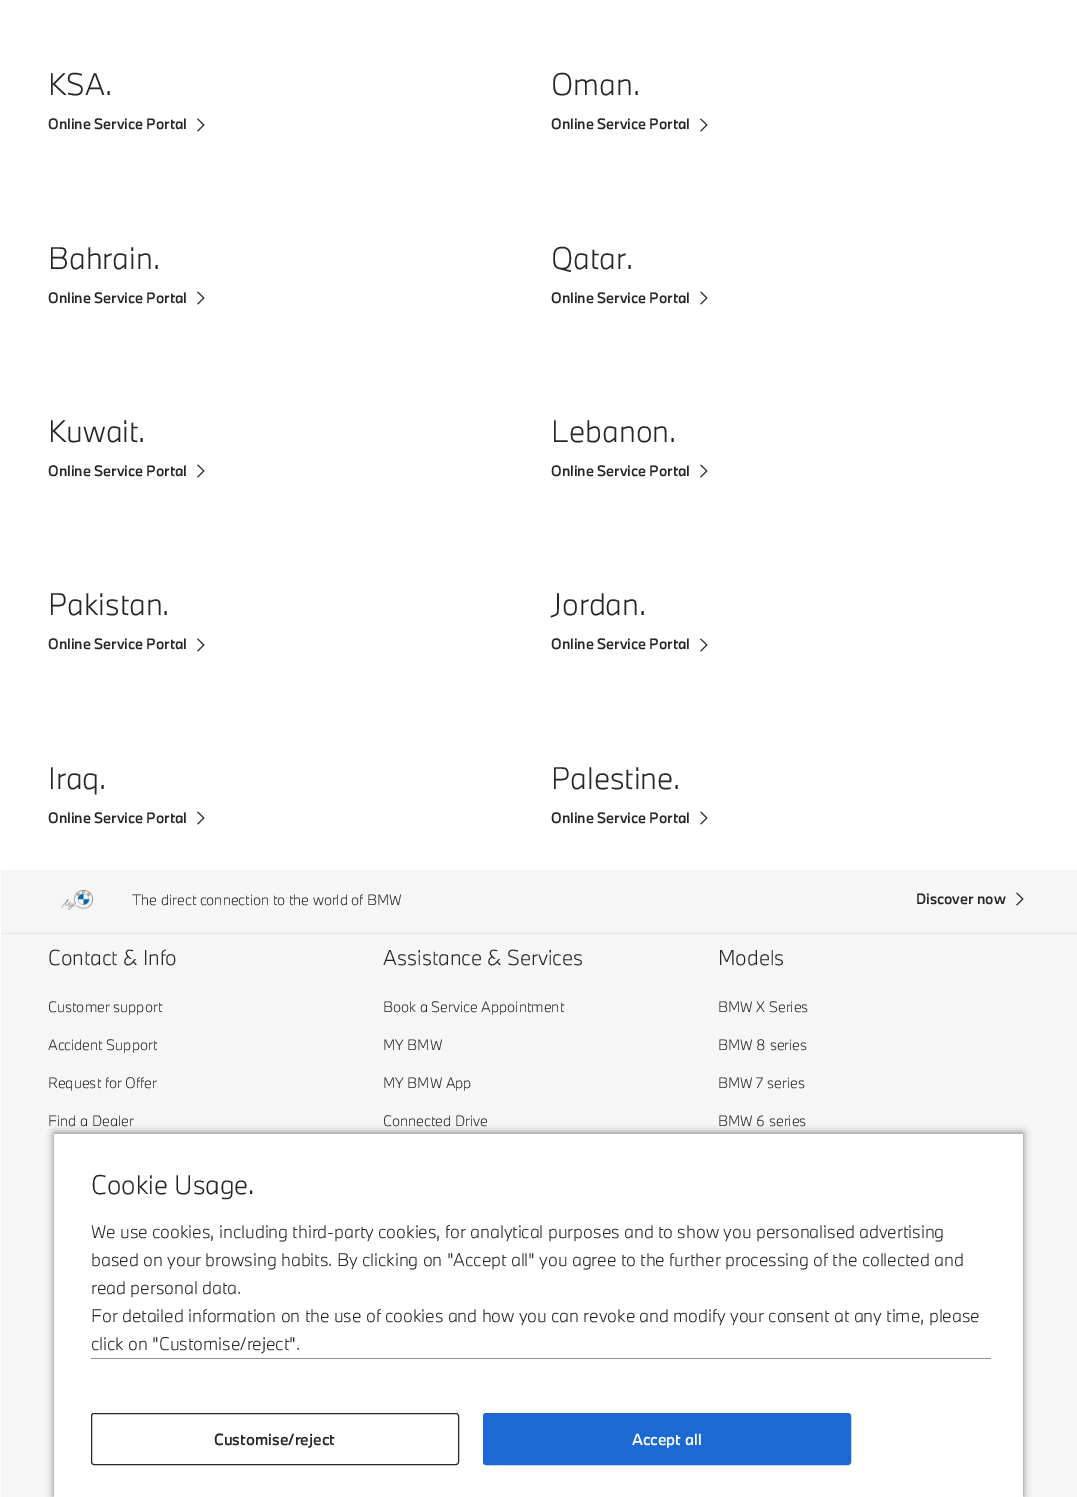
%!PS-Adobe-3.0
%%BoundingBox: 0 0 1077 1497
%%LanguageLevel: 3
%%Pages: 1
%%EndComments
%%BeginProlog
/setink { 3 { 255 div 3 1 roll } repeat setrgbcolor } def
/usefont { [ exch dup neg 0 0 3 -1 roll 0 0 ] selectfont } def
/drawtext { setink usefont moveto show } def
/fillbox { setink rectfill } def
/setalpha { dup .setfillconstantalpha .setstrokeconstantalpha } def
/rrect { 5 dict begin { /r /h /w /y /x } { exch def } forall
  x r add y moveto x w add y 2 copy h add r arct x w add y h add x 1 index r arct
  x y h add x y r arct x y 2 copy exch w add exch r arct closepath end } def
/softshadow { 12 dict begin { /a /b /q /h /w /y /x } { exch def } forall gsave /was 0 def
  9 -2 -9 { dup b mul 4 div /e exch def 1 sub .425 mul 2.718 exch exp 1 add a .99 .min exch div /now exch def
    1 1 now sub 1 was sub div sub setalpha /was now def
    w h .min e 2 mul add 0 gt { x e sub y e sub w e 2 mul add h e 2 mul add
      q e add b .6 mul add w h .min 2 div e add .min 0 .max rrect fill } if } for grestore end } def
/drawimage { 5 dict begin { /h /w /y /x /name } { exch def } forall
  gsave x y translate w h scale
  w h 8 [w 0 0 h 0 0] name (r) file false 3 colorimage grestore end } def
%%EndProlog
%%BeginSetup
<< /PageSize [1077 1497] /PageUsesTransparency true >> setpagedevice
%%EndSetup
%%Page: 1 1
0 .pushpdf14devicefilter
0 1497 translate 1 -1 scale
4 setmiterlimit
0 0 1077 1497 255 255 255 fillbox
(KSA.) 48 95 /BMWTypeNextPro-Light 29 38 38 38 drawtext
(Online Service Portal) 48 129 /BMWTypeNextPro-Medium 14 38 38 38 drawtext
(assets/img1.rgb) 196 118 9 14 drawimage
(Oman.) 551 95 /BMWTypeNextPro-Light 29 38 38 38 drawtext
(Online Service Portal) 551 129 /BMWTypeNextPro-Medium 14 38 38 38 drawtext
(assets/img1.rgb) 699 118 9 14 drawimage
(Bahrain.) 48 269 /BMWTypeNextPro-Light 29 38 38 38 drawtext
(Online Service Portal) 48 303 /BMWTypeNextPro-Medium 14 38 38 38 drawtext
(assets/img1.rgb) 196 291 9 14 drawimage
(Qatar.) 551 269 /BMWTypeNextPro-Light 29 38 38 38 drawtext
(Online Service Portal) 551 303 /BMWTypeNextPro-Medium 14 38 38 38 drawtext
(assets/img1.rgb) 699 291 9 14 drawimage
(Kuwait.) 48 442 /BMWTypeNextPro-Light 29 38 38 38 drawtext
(Online Service Portal) 48 476 /BMWTypeNextPro-Medium 14 38 38 38 drawtext
(assets/img1.rgb) 196 464 9 14 drawimage
(Lebanon.) 551 442 /BMWTypeNextPro-Light 29 38 38 38 drawtext
(Online Service Portal) 551 476 /BMWTypeNextPro-Medium 14 38 38 38 drawtext
(assets/img1.rgb) 699 464 9 14 drawimage
(Pakistan.) 48 615 /BMWTypeNextPro-Light 29 38 38 38 drawtext
(Online Service Portal) 48 649 /BMWTypeNextPro-Medium 14 38 38 38 drawtext
(assets/img1.rgb) 196 638 9 14 drawimage
(Jordan.) 551 615 /BMWTypeNextPro-Light 29 38 38 38 drawtext
(Online Service Portal) 551 649 /BMWTypeNextPro-Medium 14 38 38 38 drawtext
(assets/img1.rgb) 699 638 9 14 drawimage
(Iraq.) 48 789 /BMWTypeNextPro-Light 29 38 38 38 drawtext
(Online Service Portal) 48 823 /BMWTypeNextPro-Medium 14 38 38 38 drawtext
(assets/img1.rgb) 196 811 9 14 drawimage
(Palestine.) 551 789 /BMWTypeNextPro-Light 29 38 38 38 drawtext
(Online Service Portal) 551 823 /BMWTypeNextPro-Medium 14 38 38 38 drawtext
(assets/img1.rgb) 699 811 9 14 drawimage
1 870 1076 627 246 246 246 fillbox
(assets/img2.rgb) 61 890 32 20 drawimage
(The direct connection to the world of BMW) 132 905 /BMWTypeNextPro-Light 14 38 38 38 drawtext
(Discover now) 916 904 /BMWTypeNextPro-Medium 14 38 38 38 drawtext
(assets/img3.rgb) 1015 892 9 14 drawimage
1 933 1076 1 230 230 230 fillbox
(Contact & Info) 48 965 /BMWTypeNextPro-Light 20 38 38 38 drawtext
(Customer support) 48 1012 /BMWTypeNextPro-Light 14 38 38 38 drawtext
(Accident Support) 48 1050 /BMWTypeNextPro-Light 14 38 38 38 drawtext
(Request for Offer) 48 1088 /BMWTypeNextPro-Light 14 38 38 38 drawtext
(Find a Dealer) 48 1126 /BMWTypeNextPro-Light 14 38 38 38 drawtext
(Assistance & Services) 383 965 /BMWTypeNextPro-Light 20 38 38 38 drawtext
(Book a Service Appointment) 383 1012 /BMWTypeNextPro-Light 14 38 38 38 drawtext
(MY BMW) 383 1050 /BMWTypeNextPro-Light 14 38 38 38 drawtext
(MY BMW App) 383 1088 /BMWTypeNextPro-Light 14 38 38 38 drawtext
(Connected Drive) 383 1126 /BMWTypeNextPro-Light 14 38 38 38 drawtext
(Models) 718 965 /BMWTypeNextPro-Light 20 38 38 38 drawtext
(BMW X Series) 718 1012 /BMWTypeNextPro-Light 14 38 38 38 drawtext
(BMW 8 series) 718 1050 /BMWTypeNextPro-Light 14 38 38 38 drawtext
(BMW 7 series) 718 1088 /BMWTypeNextPro-Light 14 38 38 38 drawtext
(BMW 6 series) 718 1126 /BMWTypeNextPro-Light 14 38 38 38 drawtext
0 0 0 setink
54 1133 969 363 0 4 0.5 softshadow
54 1134 969 363 255 255 255 fillbox
(Cookie Usage.) 91 1194 /BMWTypeNextPro-Light 25 38 38 38 drawtext
(We use cookies, including third-party cookies, for analytical purposes and to show you personalised advertising) 91 1238 /BMWTypeNextPro-Light 17 38 38 38 drawtext
(based on your browsing habits. By clicking on "Accept all" you agree to the further processing of the collected and) 91 1266 /BMWTypeNextPro-Light 17 38 38 38 drawtext
(read personal data.) 91 1294 /BMWTypeNextPro-Light 17 38 38 38 drawtext
(For detailed information on the use of cookies and how you can revoke and modify your consent at any time, please) 91 1322 /BMWTypeNextPro-Light 17 38 38 38 drawtext
(click on "Customise/reject".) 91 1350 /BMWTypeNextPro-Light 17 38 38 38 drawtext
91 1358 900 1 142 142 142 fillbox
38 38 38 setink
91.5 1413.5 367 51 2.5 rrect stroke
(Customise/reject) 214 1445 /BMWTypeNextPro-Medium 15 38 38 38 drawtext
28 105 212 setink
483.5 1413.5 367 51 2.5 rrect gsave fill grestore
stroke
(Accept all) 632 1445 /BMWTypeNextPro-Medium 15 255 255 255 drawtext
.poppdf14devicefilter showpage
%%EOF
